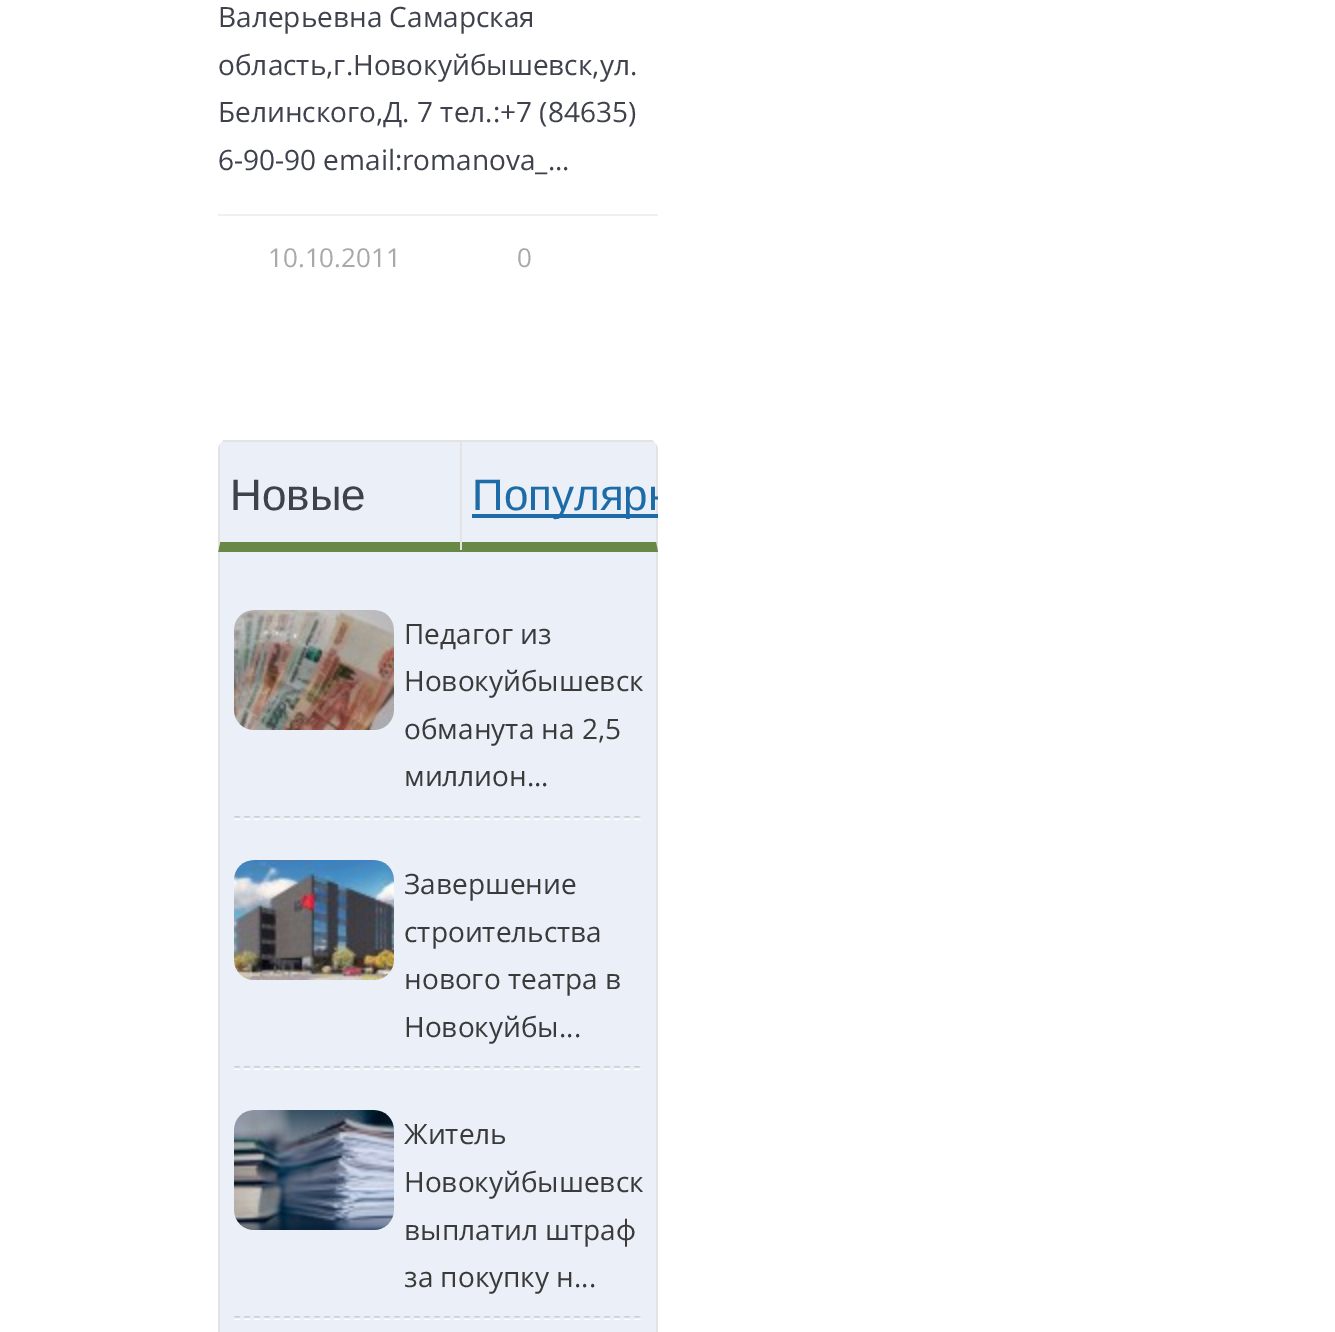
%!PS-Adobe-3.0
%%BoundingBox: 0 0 1335 1332
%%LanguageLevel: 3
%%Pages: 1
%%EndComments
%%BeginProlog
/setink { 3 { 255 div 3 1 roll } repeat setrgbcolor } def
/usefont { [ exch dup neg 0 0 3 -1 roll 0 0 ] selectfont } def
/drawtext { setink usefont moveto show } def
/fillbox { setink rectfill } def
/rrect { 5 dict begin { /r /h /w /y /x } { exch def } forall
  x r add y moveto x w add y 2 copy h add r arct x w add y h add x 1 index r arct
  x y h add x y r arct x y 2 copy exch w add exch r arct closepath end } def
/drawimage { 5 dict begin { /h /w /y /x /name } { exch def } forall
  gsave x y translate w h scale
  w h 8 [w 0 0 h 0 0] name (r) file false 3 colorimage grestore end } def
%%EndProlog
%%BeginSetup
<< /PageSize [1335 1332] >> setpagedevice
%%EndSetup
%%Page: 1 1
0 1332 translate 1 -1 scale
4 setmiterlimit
0 0 1335 1332 255 255 255 fillbox
218 214 440 2 240 240 240 fillbox
(Валерьевна Самарская) 218 27 /OpenSans-Regular 28 63 66 77 drawtext
(область,г.Новокуйбышевск,ул.) 218 75 /OpenSans-Regular 28 63 66 77 drawtext
(Белинского,Д. 7 тел.:+7 \(84635\)) 218 122 /OpenSans-Regular 28 63 66 77 drawtext
(6-90-90 email:romanova_...) 218 170 /OpenSans-Regular 28 63 66 77 drawtext
(10.10.2011) 268 267 /OpenSans-Regular 26 169 169 169 drawtext
(0) 517 267 /OpenSans-Regular 26 169 169 169 drawtext
234 239 248 setink
218 440 440 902 10 rrect fill
gsave
218 440 440 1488 10 rrect clip newpath
218 440 440 2 227 227 227 fillbox
grestore
227 227 227 setink
658 552 moveto 658 450 lineto 658 448 657 446 656 444 curveto 656 542 lineto closepath fill
104 136 72 setink
658 552 moveto 218 552 lineto 220 542 lineto 656 542 lineto closepath fill
227 227 227 setink
218 552 moveto 220 542 lineto 220 444 lineto 219 446 218 448 218 450 curveto closepath fill
460 442 2 108 227 227 227 fillbox
(Новые) 230 510 /LiberationSans-Regular 44 63 66 77 drawtext
472 514 186 4 29 107 167 fillbox
gsave
218 440 440 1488 10 rrect clip newpath
(Популярн) 472 510 /LiberationSans-Regular 44 29 107 167 drawtext
grestore
656 552 2 780 227 227 227 fillbox
218 552 2 780 227 227 227 fillbox
(assets/img1.rgb) 234 610 160 120 drawimage
(Педагог из) 404 644 /OpenSans-Regular 28 58 58 58 drawtext
(Новокуйбышевск) 404 691 /OpenSans-Regular 28 58 58 58 drawtext
(обманута на 2,5) 404 739 /OpenSans-Regular 28 58 58 58 drawtext
(миллион...) 404 786 /OpenSans-Regular 28 58 58 58 drawtext
(assets/img2.rgb) 234 816 407 4 drawimage
(assets/img3.rgb) 234 860 160 120 drawimage
(Завершение) 404 894 /OpenSans-Regular 28 58 58 58 drawtext
(строительства) 404 942 /OpenSans-Regular 28 58 58 58 drawtext
(нового театра в) 404 989 /OpenSans-Regular 28 58 58 58 drawtext
(Новокуйбы...) 404 1037 /OpenSans-Regular 28 58 58 58 drawtext
(assets/img2.rgb) 234 1066 407 4 drawimage
(assets/img4.rgb) 234 1110 160 120 drawimage
(Житель) 404 1144 /OpenSans-Regular 28 58 58 58 drawtext
(Новокуйбышевск) 404 1192 /OpenSans-Regular 28 58 58 58 drawtext
(выплатил штраф) 404 1240 /OpenSans-Regular 28 58 58 58 drawtext
(за покупку н...) 404 1287 /OpenSans-Regular 28 58 58 58 drawtext
(assets/img2.rgb) 234 1316 407 4 drawimage
showpage
%%EOF
